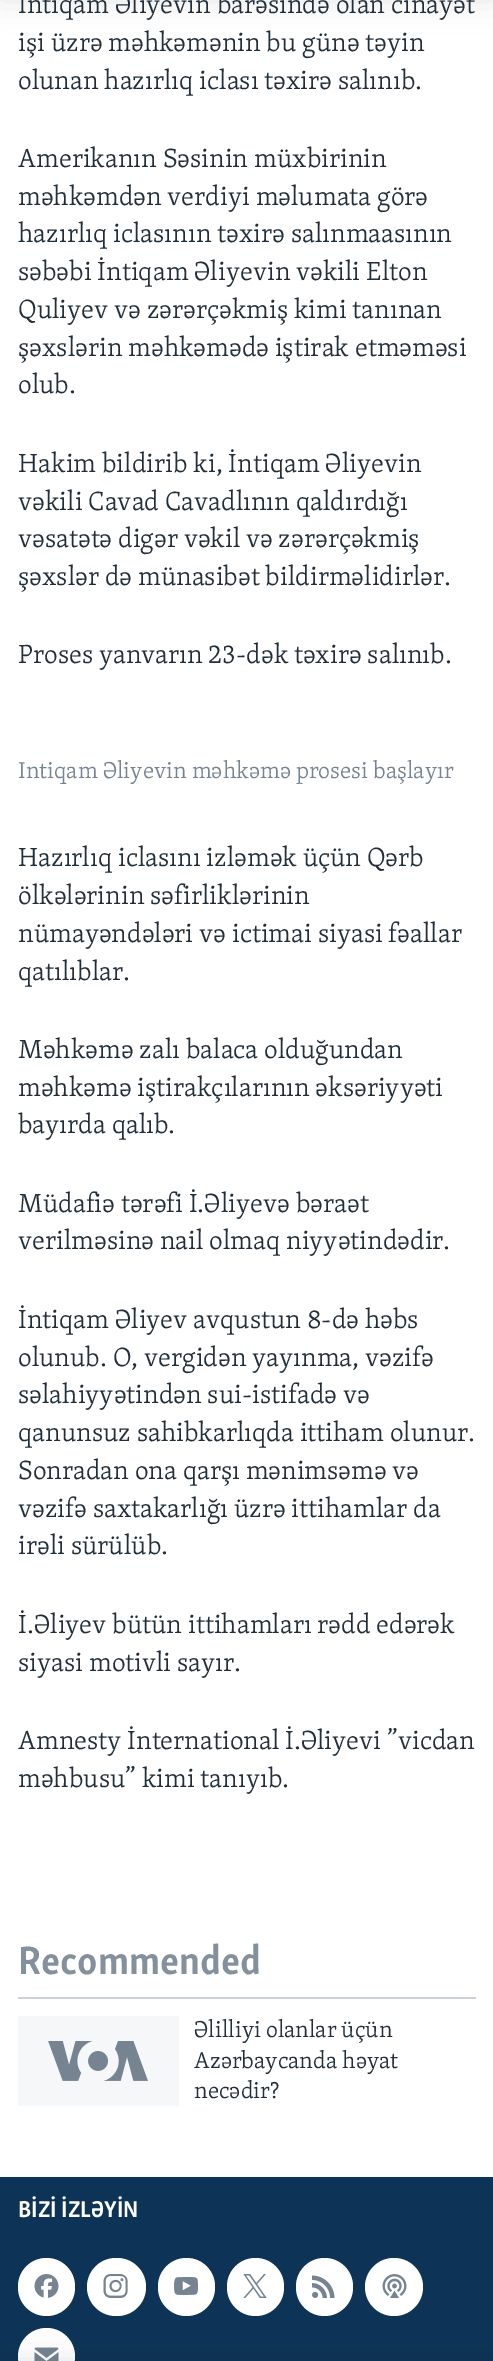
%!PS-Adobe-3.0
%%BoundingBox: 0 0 493 2361
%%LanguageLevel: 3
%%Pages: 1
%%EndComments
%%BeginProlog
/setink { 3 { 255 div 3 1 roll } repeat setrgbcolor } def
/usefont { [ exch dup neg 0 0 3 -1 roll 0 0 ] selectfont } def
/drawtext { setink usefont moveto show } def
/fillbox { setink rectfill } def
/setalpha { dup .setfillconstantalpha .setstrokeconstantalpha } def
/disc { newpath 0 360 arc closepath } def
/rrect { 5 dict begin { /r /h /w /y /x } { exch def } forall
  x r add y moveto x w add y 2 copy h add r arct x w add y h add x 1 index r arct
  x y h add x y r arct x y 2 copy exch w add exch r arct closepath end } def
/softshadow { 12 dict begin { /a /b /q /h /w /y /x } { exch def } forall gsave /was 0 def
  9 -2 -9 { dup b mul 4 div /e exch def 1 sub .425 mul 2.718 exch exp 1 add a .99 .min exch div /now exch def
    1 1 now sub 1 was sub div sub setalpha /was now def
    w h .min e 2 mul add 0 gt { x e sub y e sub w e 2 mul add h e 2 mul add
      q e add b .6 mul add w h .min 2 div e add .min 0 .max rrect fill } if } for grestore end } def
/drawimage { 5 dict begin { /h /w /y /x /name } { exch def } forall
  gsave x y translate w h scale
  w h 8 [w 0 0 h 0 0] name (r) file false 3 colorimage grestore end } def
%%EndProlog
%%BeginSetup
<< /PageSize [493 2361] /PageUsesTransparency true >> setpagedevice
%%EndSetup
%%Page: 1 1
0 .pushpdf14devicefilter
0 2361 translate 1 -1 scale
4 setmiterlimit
0 0 493 2361 255 255 255 fillbox
0 0 0 setink
0 -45 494 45 0 15 0.1 softshadow
0 2177 493 184 13 52 86 fillbox
255 255 255 setink
18 2258 57 58 28.5 rrect fill
87 2258 59 58 29 rrect fill
158 2258 57 58 28.5 rrect fill
227 2258 57 58 28.5 rrect fill
296 2258 57 58 28.5 rrect fill
394 2287 29 disc fill
46.5 2356.5 28.5 disc fill
(assets/img8.rgb) 34 2347 25 14 drawimage
0 0 0 setink
0 2361 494 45 0 15 0.1 softshadow
(İntiqam Əliyevin barəsində olan cinayət) 18 13 /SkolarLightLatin-Light 27 34 47 58 drawtext
(işi üzrə məhkəmənin bu günə təyin) 18 51 /SkolarLightLatin-Light 27 34 47 58 drawtext
(olunan hazırlıq iclası təxirə salınıb.) 18 89 /SkolarLightLatin-Light 27 34 47 58 drawtext
(Amerikanın Səsinin müxbirinin) 18 167 /SkolarLightLatin-Light 27 34 47 58 drawtext
(məhkəmdən verdiyi məlumata görə) 18 205 /SkolarLightLatin-Light 27 34 47 58 drawtext
(hazırlıq iclasının təxirə salınmaasının) 18 242 /SkolarLightLatin-Light 27 34 47 58 drawtext
(səbəbi İntiqam Əliyevin vəkili Elton) 18 280 /SkolarLightLatin-Light 27 34 47 58 drawtext
(Quliyev və zərərçəkmiş kimi tanınan) 18 318 /SkolarLightLatin-Light 27 34 47 58 drawtext
(şəxslərin məhkəmədə iştirak etməməsi) 18 356 /SkolarLightLatin-Light 27 34 47 58 drawtext
(olub.) 18 393 /SkolarLightLatin-Light 27 34 47 58 drawtext
(Hakim bildirib ki, İntiqam Əliyevin) 18 472 /SkolarLightLatin-Light 27 34 47 58 drawtext
(vəkili Cavad Cavadlının qaldırdığı) 18 510 /SkolarLightLatin-Light 27 34 47 58 drawtext
(vəsatətə digər vəkil və zərərçəkmiş) 18 547 /SkolarLightLatin-Light 27 34 47 58 drawtext
(şəxslər də münasibət bildirməlidirlər.) 18 585 /SkolarLightLatin-Light 27 34 47 58 drawtext
(Proses yanvarın 23-dək təxirə salınıb.) 18 663 /SkolarLightLatin-Light 27 34 47 58 drawtext
(Intiqam Əliyevin məhkəmə prosesi başlayır) 18 778 /SkolarLightLatin-Light 23.6 118 132 146 drawtext
(Hazırlıq iclasını izləmək üçün Qərb) 18 866 /SkolarLightLatin-Light 27 34 47 58 drawtext
(ölkələrinin səfirliklərinin) 18 904 /SkolarLightLatin-Light 27 34 47 58 drawtext
(nümayəndələri və ictimai siyasi fəallar) 18 942 /SkolarLightLatin-Light 27 34 47 58 drawtext
(qatılıblar.) 18 980 /SkolarLightLatin-Light 27 34 47 58 drawtext
(Məhkəmə zalı balaca olduğundan) 18 1058 /SkolarLightLatin-Light 27 34 47 58 drawtext
(məhkəmə iştirakçılarının əksəriyyəti) 18 1096 /SkolarLightLatin-Light 27 34 47 58 drawtext
(bayırda qalıb.) 18 1133 /SkolarLightLatin-Light 27 34 47 58 drawtext
(Müdafiə tərəfi İ.Əliyevə bəraət) 18 1212 /SkolarLightLatin-Light 27 34 47 58 drawtext
(verilməsinə nail olmaq niyyətindədir.) 18 1249 /SkolarLightLatin-Light 27 34 47 58 drawtext
(İntiqam Əliyev avqustun 8-də həbs) 18 1328 /SkolarLightLatin-Light 27 34 47 58 drawtext
(olunub. O, vergidən yayınma, vəzifə) 18 1366 /SkolarLightLatin-Light 27 34 47 58 drawtext
(səlahiyyətindən sui-istifadə və) 18 1403 /SkolarLightLatin-Light 27 34 47 58 drawtext
(qanunsuz sahibkarlıqda ittiham olunur.) 18 1441 /SkolarLightLatin-Light 27 34 47 58 drawtext
(Sonradan ona qarşı mənimsəmə və) 18 1479 /SkolarLightLatin-Light 27 34 47 58 drawtext
(vəzifə saxtakarlığı üzrə ittihamlar da) 18 1517 /SkolarLightLatin-Light 27 34 47 58 drawtext
(irəli sürülüb.) 18 1554 /SkolarLightLatin-Light 27 34 47 58 drawtext
(İ.Əliyev bütün ittihamları rədd edərək) 18 1633 /SkolarLightLatin-Light 27 34 47 58 drawtext
(siyasi motivli sayır.) 18 1671 /SkolarLightLatin-Light 27 34 47 58 drawtext
(Amnesty İnternational İ.Əliyevi ”vicdan) 18 1749 /SkolarLightLatin-Light 27 34 47 58 drawtext
(məhbusu” kimi tanıyıb.) 18 1787 /SkolarLightLatin-Light 27 34 47 58 drawtext
18 1997 458 2 203 209 214 fillbox
(Recommended) 18 1974 /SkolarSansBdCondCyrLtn-Bold 40.5 132 145 157 drawtext
18 2016 161 90 246 247 248 fillbox
(assets/img1.rgb) 48 2041 100 40 drawimage
(Əlilliyi olanlar üçün) 194 2037 /SkolarLightLatin-Light 23.6 34 47 58 drawtext
(Azərbaycanda həyat) 194 2068 /SkolarLightLatin-Light 23.6 34 47 58 drawtext
(necədir?) 194 2098 /SkolarLightLatin-Light 23.6 34 47 58 drawtext
(BİZİ İZLƏYİN) 18 2217 /SkolarSansBdCondCyrLtn-Bold 23.6 255 255 255 drawtext
(assets/img2.rgb) 34 2274 25 24 drawimage
(assets/img3.rgb) 103 2274 25 24 drawimage
(assets/img4.rgb) 174 2277 24 18 drawimage
(assets/img5.rgb) 243 2274 24 24 drawimage
(assets/img6.rgb) 312 2275 23 23 drawimage
(assets/img7.rgb) 382 2274 25 24 drawimage
.poppdf14devicefilter showpage
%%EOF
